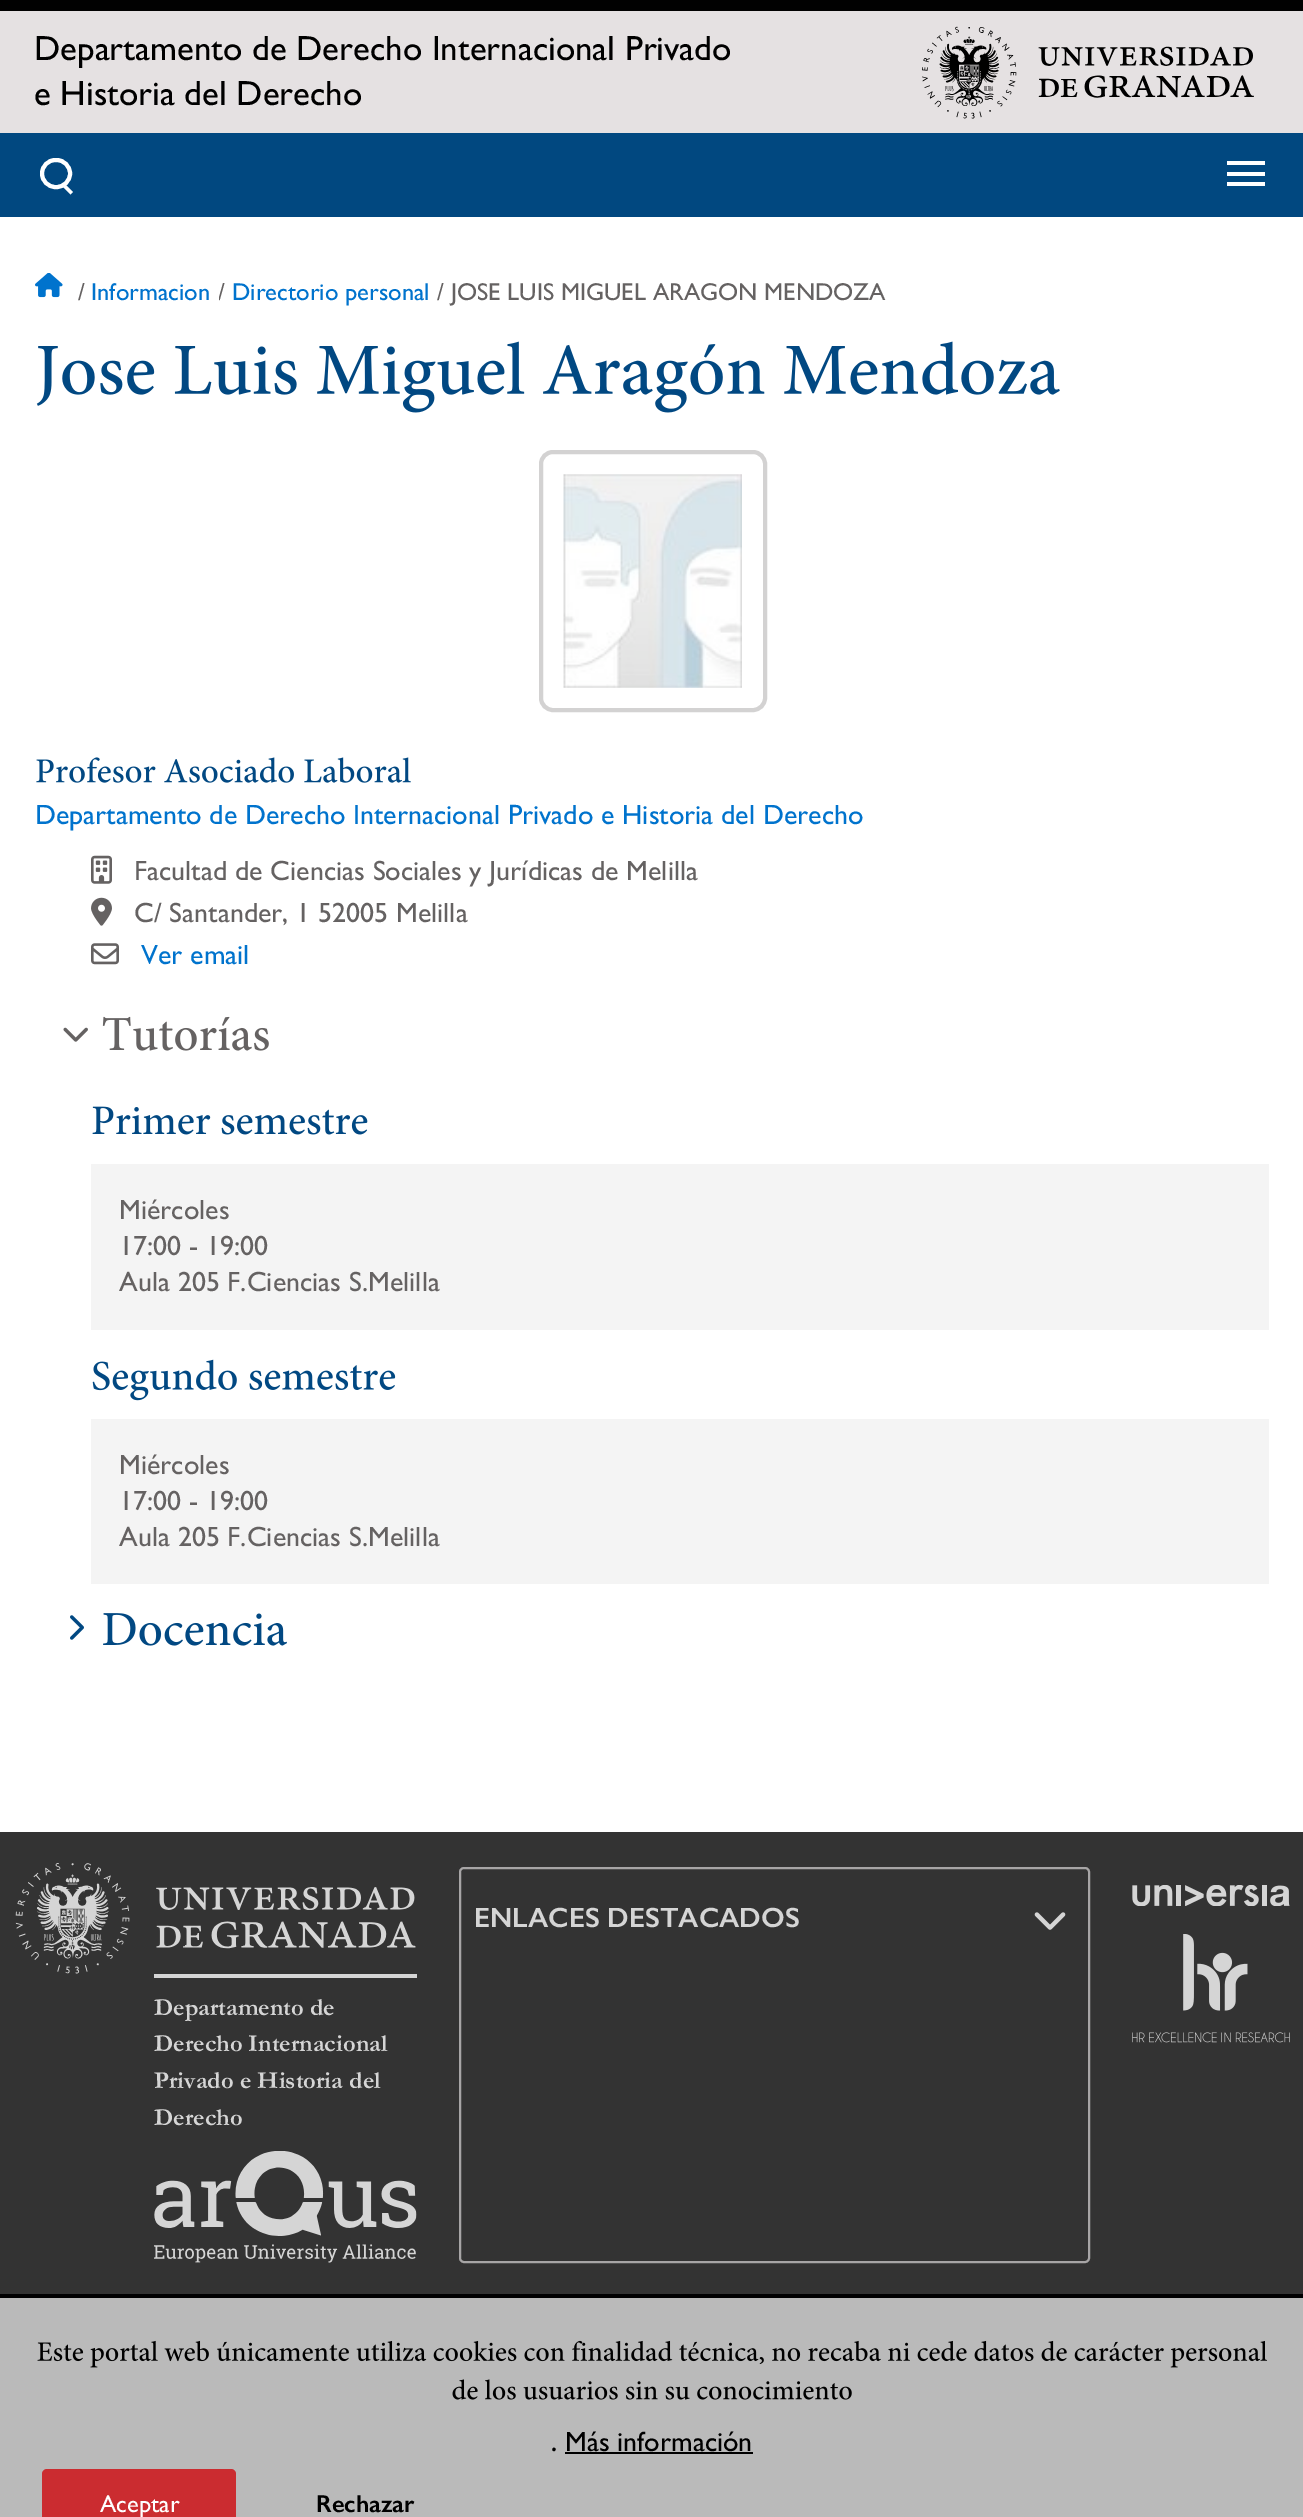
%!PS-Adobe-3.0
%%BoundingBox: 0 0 1303 2517
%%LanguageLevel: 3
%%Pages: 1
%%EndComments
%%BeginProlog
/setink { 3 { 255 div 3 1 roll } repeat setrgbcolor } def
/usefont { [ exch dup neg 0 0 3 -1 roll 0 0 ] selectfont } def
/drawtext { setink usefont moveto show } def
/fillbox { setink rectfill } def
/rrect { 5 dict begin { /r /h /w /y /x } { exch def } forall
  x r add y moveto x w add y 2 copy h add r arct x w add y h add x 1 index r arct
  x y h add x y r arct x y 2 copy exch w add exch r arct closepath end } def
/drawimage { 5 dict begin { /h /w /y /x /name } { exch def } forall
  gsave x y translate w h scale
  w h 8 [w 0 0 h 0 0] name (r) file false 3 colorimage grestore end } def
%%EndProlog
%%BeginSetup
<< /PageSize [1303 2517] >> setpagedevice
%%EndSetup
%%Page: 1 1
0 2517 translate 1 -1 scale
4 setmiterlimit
0 0 1303 2517 255 255 255 fillbox
0 0 1303 11 1 1 1 fillbox
0 133 1303 84 1 72 128 fillbox
0 11 1303 122 229 225 226 fillbox
(Departamento de Derecho Internacional Privado) 34 60 /GillSans-Regular 35 0 0 0 drawtext
(e Historia del Derecho) 34 105 /GillSans-Regular 35 0 0 0 drawtext
(assets/img1.rgb) 922 26 332 93 drawimage
255 255 255 setink
4 setlinewidth
42 160 28 27 13.5 rrect stroke
64.5 183.5 moveto 73 192 lineto 70.5 194.5 lineto 62 186 lineto closepath fill
1227 172 38 4 255 255 255 fillbox
1227 161 38 4 255 255 255 fillbox
1227 182 38 4 255 255 255 fillbox
(assets/img2.rgb) 35 273 28 25 drawimage
(/) 78 300 /GillSans-Regular 24.5 101 98 98 drawtext
(Informacion) 91 300 /GillSans-Regular 24.5 0 115 205 drawtext
gsave
219 273 212 35 rectclip
(/) 218 300 /GillSans-Regular 24.5 101 98 98 drawtext
grestore
(Directorio personal) 232 300 /GillSans-Regular 24.5 0 115 205 drawtext
(/ JOSE LUIS MIGUEL ARAGON MENDOZA) 437 300 /GillSans-Regular 24.5 101 98 98 drawtext
(assets/img3.rgb) 36 341 1024 72 drawimage
211 210 210 setink
541 452 224 258 12 rrect stroke
(assets/img4.rgb) 563 474 179 214 drawimage
(assets/img5.rgb) 36 757 375 26 drawimage
(Departamento de Derecho Internacional Privado e Historia del Derecho) 35 824 /GillSans-Regular 28 0 115 205 drawtext
(assets/img6.rgb) 91 855 21 29 drawimage
(Facultad de Ciencias Sociales y Jurídicas de Melilla) 134 880 /GillSans-Regular 28 101 98 98 drawtext
(assets/img7.rgb) 91 897 21 29 drawimage
(C/ Santander, 1 52005 Melilla) 134 922 /GillSans-Regular 28 101 98 98 drawtext
(assets/img8.rgb) 91 943 28 22 drawimage
(Ver email) 141 964 /GillSans-Regular 28 0 115 205 drawtext
(assets/img9.rgb) 63 1027 25 15 drawimage
(assets/img10.rgb) 102 1016 167 35 drawimage
(assets/img11.rgb) 92 1106 276 29 drawimage
91 1164 1178 166 244 244 244 fillbox
(Miércoles) 119 1219 /GillSans-Regular 28 101 98 98 drawtext
(17:00 - 19:00) 119 1255 /GillSans-Regular 28 101 98 98 drawtext
(Aula 205 F.Ciencias S.Melilla) 119 1291 /GillSans-Regular 28 101 98 98 drawtext
(assets/img12.rgb) 92 1359 304 42 drawimage
91 1419 1178 165 244 244 244 fillbox
(Miércoles) 119 1474 /GillSans-Regular 28 101 98 98 drawtext
(17:00 - 19:00) 119 1510 /GillSans-Regular 28 101 98 98 drawtext
(Aula 205 F.Ciencias S.Melilla) 119 1546 /GillSans-Regular 28 101 98 98 drawtext
(assets/img13.rgb) 70 1615 14 25 drawimage
(assets/img14.rgb) 103 1613 184 33 drawimage
0 1832 1303 462 51 51 51 fillbox
167 165 166 setink
2 setlinewidth
460 1868 629 394 4 rrect stroke
(ENLACES DESTACADOS) 474 1927 /GillSans-SemiBold 28 213 213 213 drawtext
(assets/img15.rgb) 1034 1912 32 18 drawimage
(assets/img16.rgb) 1132 1885 158 21 drawimage
(assets/img17.rgb) 1132 1934 158 109 drawimage
(assets/img18.rgb) 15 1863 401 111 drawimage
154 1974 263 4 213 213 213 fillbox
(Departamento de) 154 2015 /Garamond-Bold 24.5 213 213 213 drawtext
(Derecho Internacional) 154 2051 /Garamond-Bold 24.5 213 213 213 drawtext
(Privado e Historia del) 154 2088 /Garamond-Bold 24.5 213 213 213 drawtext
(Derecho) 154 2125 /Garamond-Bold 24.5 213 213 213 drawtext
(assets/img19.rgb) 154 2151 263 112 drawimage
0 2294 1303 4 0 0 1 fillbox
0 2298 1303 219 186 186 186 fillbox
(assets/img20.rgb) 37 2340 1230 28 drawimage
(assets/img21.rgb) 452 2379 400 21 drawimage
(.) 551 2451 /GillSans-SemiBold 24.5 0 0 0 drawtext
(Más información) 565 2451 /GillSans-Regular 28 0 0 0 drawtext
565 2452 188 2 0 0 0 fillbox
203 44 48 setink
42 2469 194 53 5 rrect fill
(Aceptar) 100 2512 /GillSans-Regular 24.5 255 255 255 drawtext
(Rechazar) 316 2512 /GillSans-SemiBold 24.5 0 0 0 drawtext
showpage
%%EOF
